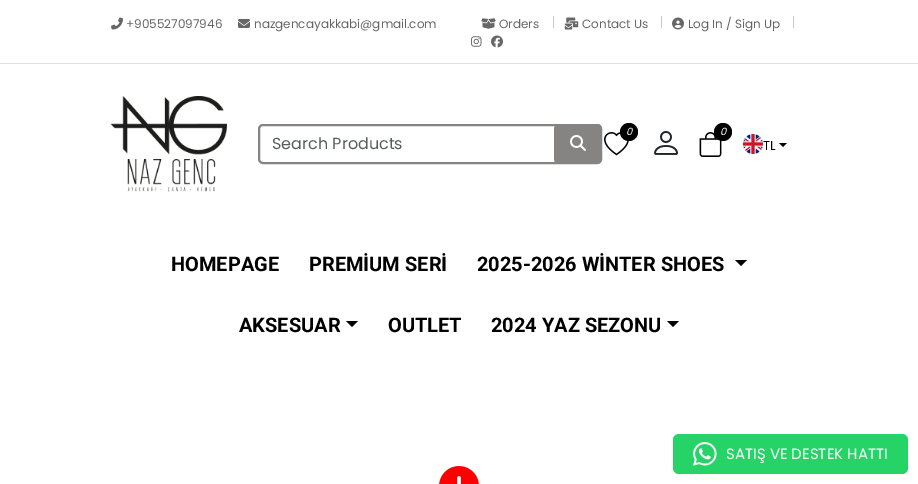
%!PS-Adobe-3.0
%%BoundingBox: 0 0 918 484
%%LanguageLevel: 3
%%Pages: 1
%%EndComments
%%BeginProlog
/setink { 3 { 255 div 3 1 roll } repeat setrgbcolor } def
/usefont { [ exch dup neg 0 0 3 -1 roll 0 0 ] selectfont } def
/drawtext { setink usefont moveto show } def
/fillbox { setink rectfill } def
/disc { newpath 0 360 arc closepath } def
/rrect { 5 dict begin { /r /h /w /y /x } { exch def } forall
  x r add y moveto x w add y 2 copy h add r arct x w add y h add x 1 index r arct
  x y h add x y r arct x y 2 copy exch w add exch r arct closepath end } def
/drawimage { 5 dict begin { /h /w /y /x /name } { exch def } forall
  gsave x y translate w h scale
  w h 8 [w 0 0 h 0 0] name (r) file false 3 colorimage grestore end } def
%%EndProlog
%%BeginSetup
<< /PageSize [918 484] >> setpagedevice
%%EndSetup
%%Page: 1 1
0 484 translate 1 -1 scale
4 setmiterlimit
0 0 918 484 255 255 255 fillbox
0 63 918 1 225 225 225 fillbox
(assets/img1.rgb) 111 17 12 13 drawimage
(+905527097946) 126 28 /Poppins-Regular 12 102 102 102 drawtext
(assets/img2.rgb) 238 19 12 9 drawimage
(nazgencayakkabi@gmail.com) 254 28 /Poppins-Regular 12 102 102 102 drawtext
(assets/img3.rgb) 481 18 15 11 drawimage
(Orders) 499 28 /Poppins-Regular 12 102 102 102 drawtext
553 16 1 12 200 201 202 fillbox
(assets/img4.rgb) 564 17 15 13 drawimage
(Contact Us) 582 28 /Poppins-Regular 12 102 102 102 drawtext
661 16 1 12 200 201 202 fillbox
(assets/img5.rgb) 672 17 12 13 drawimage
(Log In / Sign Up) 688 28 /Poppins-Regular 12 102 102 102 drawtext
793 16 1 12 200 201 202 fillbox
(assets/img6.rgb) 471 36 11 11 drawimage
(assets/img7.rgb) 491 35 12 13 drawimage
(assets/img8.rgb) 111 96 116 96 drawimage
134 131 131 setink
2 setlinewidth
259 125 342 38 4 rrect stroke
(Search Products) 272 149 /Poppins-Regular 16 89 92 95 drawtext
134 131 131 setink
554 124 48 40 5 rrect fill
(assets/img9.rgb) 570 135 16 16 drawimage
(assets/img10.rgb) 604 132 25 24 drawimage
0 0 0 setink
629 132 9 disc fill
(0) 626 135 /Poppins-Italic 10 255 255 255 drawtext
(assets/img11.rgb) 654 131 24 24 drawimage
(assets/img12.rgb) 699 132 23 25 drawimage
0 0 0 setink
723 132 9 disc fill
(0) 720 135 /Poppins-Italic 10 255 255 255 drawtext
(assets/img13.rgb) 743 134 20 20 drawimage
(TL) 763 150 /Poppins-Regular 13 0 0 0 drawtext
779 143 moveto 787 143 lineto 783 147 lineto closepath fill
(HOMEPAGE) 171 271 /Roboto-Bold 20 0 0 0 drawtext
(PREMİUM SERİ) 309 271 /Roboto-Bold 20 0 0 0 drawtext
(2025-2026 WİNTER SHOES) 477 271 /Roboto-Bold 20 0 0 0 drawtext
735 260 moveto 747 260 lineto 741 266 lineto closepath fill
(AKSESUAR) 239 332 /Roboto-Bold 20 0 0 0 drawtext
346 321 moveto 358 321 lineto 352 327 lineto closepath fill
(OUTLET) 388 332 /Roboto-Bold 20 0 0 0 drawtext
(2024 YAZ SEZONU) 491 332 /Roboto-Bold 20 0 0 0 drawtext
667 321 moveto 679 321 lineto 673 327 lineto closepath fill
37 211 102 setink
673 434 235 40 6 rrect fill
(assets/img14.rgb) 693 442 24 24 drawimage
(SATIŞ VE DESTEK HATTI) 726 459 /Poppins-Regular 15 255 255 255 drawtext
(assets/img15.rgb) 439 466 40 18 drawimage
showpage
%%EOF
